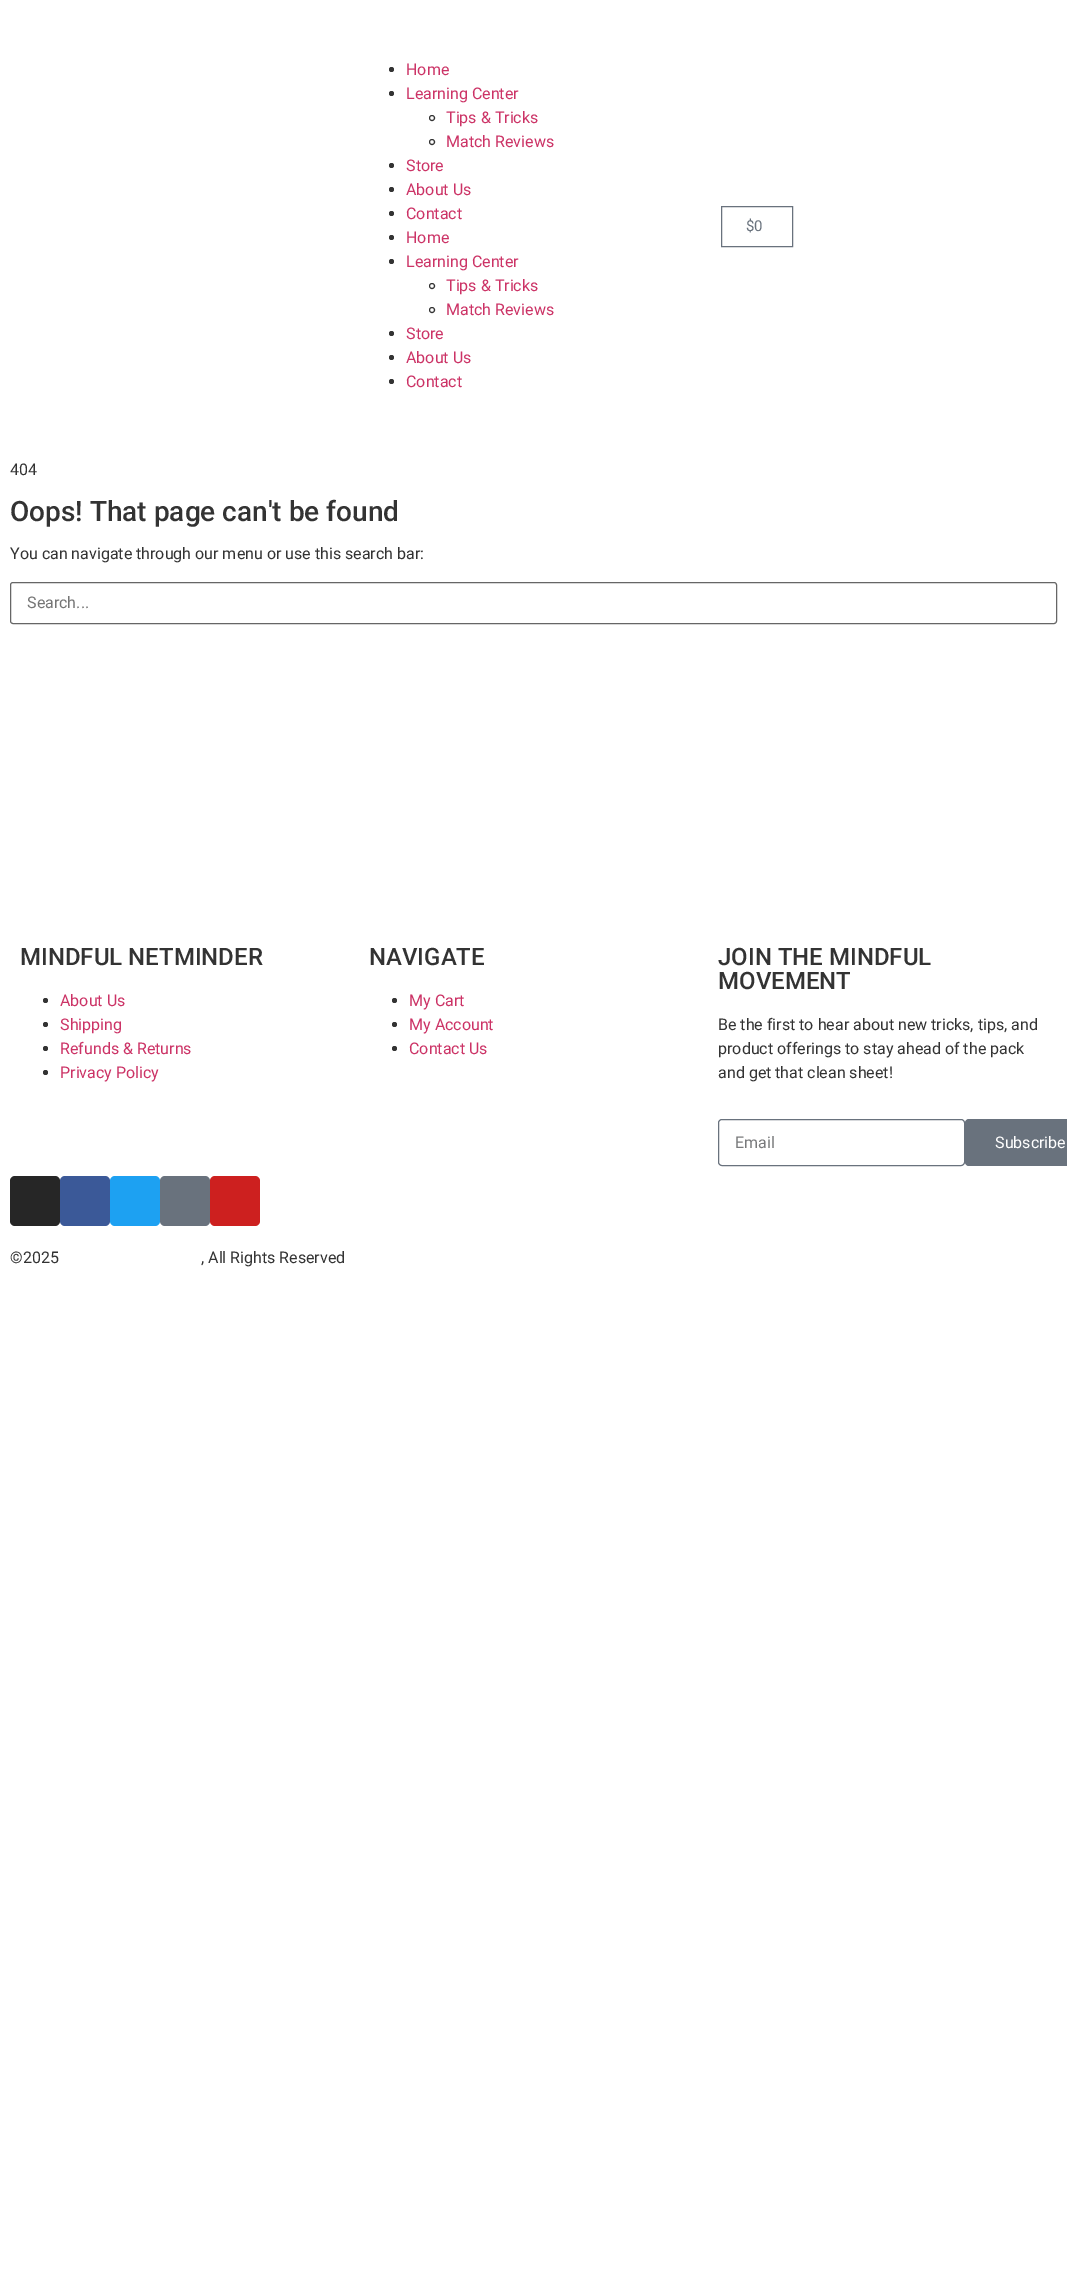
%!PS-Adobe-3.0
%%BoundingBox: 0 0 1067 2272
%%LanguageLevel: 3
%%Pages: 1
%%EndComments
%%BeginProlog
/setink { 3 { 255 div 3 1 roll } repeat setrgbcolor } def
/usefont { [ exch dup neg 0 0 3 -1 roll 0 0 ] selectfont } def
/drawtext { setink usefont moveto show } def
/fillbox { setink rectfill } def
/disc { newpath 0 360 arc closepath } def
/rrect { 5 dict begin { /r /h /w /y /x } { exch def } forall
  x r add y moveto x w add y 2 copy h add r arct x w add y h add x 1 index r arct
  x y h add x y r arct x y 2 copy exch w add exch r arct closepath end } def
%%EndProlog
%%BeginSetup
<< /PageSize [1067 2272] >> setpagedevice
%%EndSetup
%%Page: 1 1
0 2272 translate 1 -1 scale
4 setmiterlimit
0 0 1067 2272 255 255 255 fillbox
51 51 51 setink
391.5 69.5 2.5 disc fill
(Home) 406 75 /Roboto-Regular 16 204 51 102 drawtext
51 51 51 setink
391.5 93.5 2.5 disc fill
(Learning Center) 406 99 /Roboto-Regular 16 204 51 102 drawtext
51 51 51 setink
432 118 2.5 disc stroke
(Tips & Tricks) 446 123 /Roboto-Regular 16 204 51 102 drawtext
51 51 51 setink
432 142 2.5 disc stroke
(Match Reviews) 446 147 /Roboto-Regular 16 204 51 102 drawtext
51 51 51 setink
391.5 165.5 2.5 disc fill
(Store) 406 171 /Roboto-Regular 16 204 51 102 drawtext
51 51 51 setink
391.5 189.5 2.5 disc fill
(About Us) 406 195 /Roboto-Regular 16 204 51 102 drawtext
51 51 51 setink
391.5 213.5 2.5 disc fill
(Contact) 406 219 /Roboto-Regular 16 204 51 102 drawtext
51 51 51 setink
391.5 237.5 2.5 disc fill
(Home) 406 243 /Roboto-Regular 16 204 51 102 drawtext
51 51 51 setink
391.5 261.5 2.5 disc fill
(Learning Center) 406 267 /Roboto-Regular 16 204 51 102 drawtext
51 51 51 setink
432 286 2.5 disc stroke
(Tips & Tricks) 446 291 /Roboto-Regular 16 204 51 102 drawtext
51 51 51 setink
432 310 2.5 disc stroke
(Match Reviews) 446 315 /Roboto-Regular 16 204 51 102 drawtext
51 51 51 setink
391.5 333.5 2.5 disc fill
(Store) 406 339 /Roboto-Regular 16 204 51 102 drawtext
51 51 51 setink
391.5 357.5 2.5 disc fill
(About Us) 406 363 /Roboto-Regular 16 204 51 102 drawtext
51 51 51 setink
391.5 381.5 2.5 disc fill
(Contact) 406 387 /Roboto-Regular 16 204 51 102 drawtext
105 114 125 setink
721.5 206.5 71 40 rectstroke
($0) 746 231 /Roboto-Regular 15 105 114 125 drawtext
(404) 10 475 /Roboto-Regular 16 51 51 51 drawtext
(Oops! That page can't be found) 10 521 /Roboto-Medium 28 51 51 51 drawtext
(You can navigate through our menu or use this search bar:) 10 559 /Roboto-Regular 16 51 51 51 drawtext
102 102 102 setink
10.5 582.5 1046 41 2.5 rrect stroke
(Search...) 27 608 /Roboto-Regular 16 117 117 117 drawtext
(MINDFUL NETMINDER) 20 965 /Roboto-Medium 24 51 51 51 drawtext
45.5 1000.5 2.5 disc fill
(About Us) 60 1006 /Roboto-Regular 16 204 51 102 drawtext
51 51 51 setink
45.5 1024.5 2.5 disc fill
(Shipping) 60 1030 /Roboto-Regular 16 204 51 102 drawtext
51 51 51 setink
45.5 1048.5 2.5 disc fill
(Refunds & Returns) 60 1054 /Roboto-Regular 16 204 51 102 drawtext
51 51 51 setink
45.5 1072.5 2.5 disc fill
(Privacy Policy) 60 1078 /Roboto-Regular 16 204 51 102 drawtext
(NAVIGATE) 369 965 /Roboto-Medium 24 51 51 51 drawtext
394.5 1000.5 2.5 disc fill
(My Cart) 409 1006 /Roboto-Regular 16 204 51 102 drawtext
51 51 51 setink
394.5 1024.5 2.5 disc fill
(My Account) 409 1030 /Roboto-Regular 16 204 51 102 drawtext
51 51 51 setink
394.5 1048.5 2.5 disc fill
(Contact Us) 409 1054 /Roboto-Regular 16 204 51 102 drawtext
(JOIN THE MINDFUL) 718 965 /Roboto-Medium 24 51 51 51 drawtext
(MOVEMENT) 718 989 /Roboto-Medium 24 51 51 51 drawtext
(Be the first to hear about new tricks, tips, and) 718 1030 /Roboto-Regular 16 51 51 51 drawtext
(product offerings to stay ahead of the pack) 718 1054 /Roboto-Regular 16 51 51 51 drawtext
(and get that clean sheet!) 718 1078 /Roboto-Regular 16 51 51 51 drawtext
105 114 125 setink
718.5 1119.5 246 46 3.5 rrect stroke
(Email) 735 1148 /Roboto-Regular 16 121 122 124 drawtext
105 114 125 setink
965 1119 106 47 4 rrect fill
(Subscribe) 995 1148 /Roboto-Regular 16 255 255 255 drawtext
38 38 38 setink
10 1176 50 50 5 rrect fill
59 89 152 setink
60 1176 50 50 5 rrect fill
29 161 242 setink
110 1176 50 50 5 rrect fill
105 114 125 setink
160 1176 50 50 5 rrect fill
205 32 31 setink
210 1176 50 50 5 rrect fill
(©2025) 10 1263 /Roboto-Regular 16 51 51 51 drawtext
(, All Rights Reserved) 201 1263 /Roboto-Regular 16 51 51 51 drawtext
showpage
%%EOF
